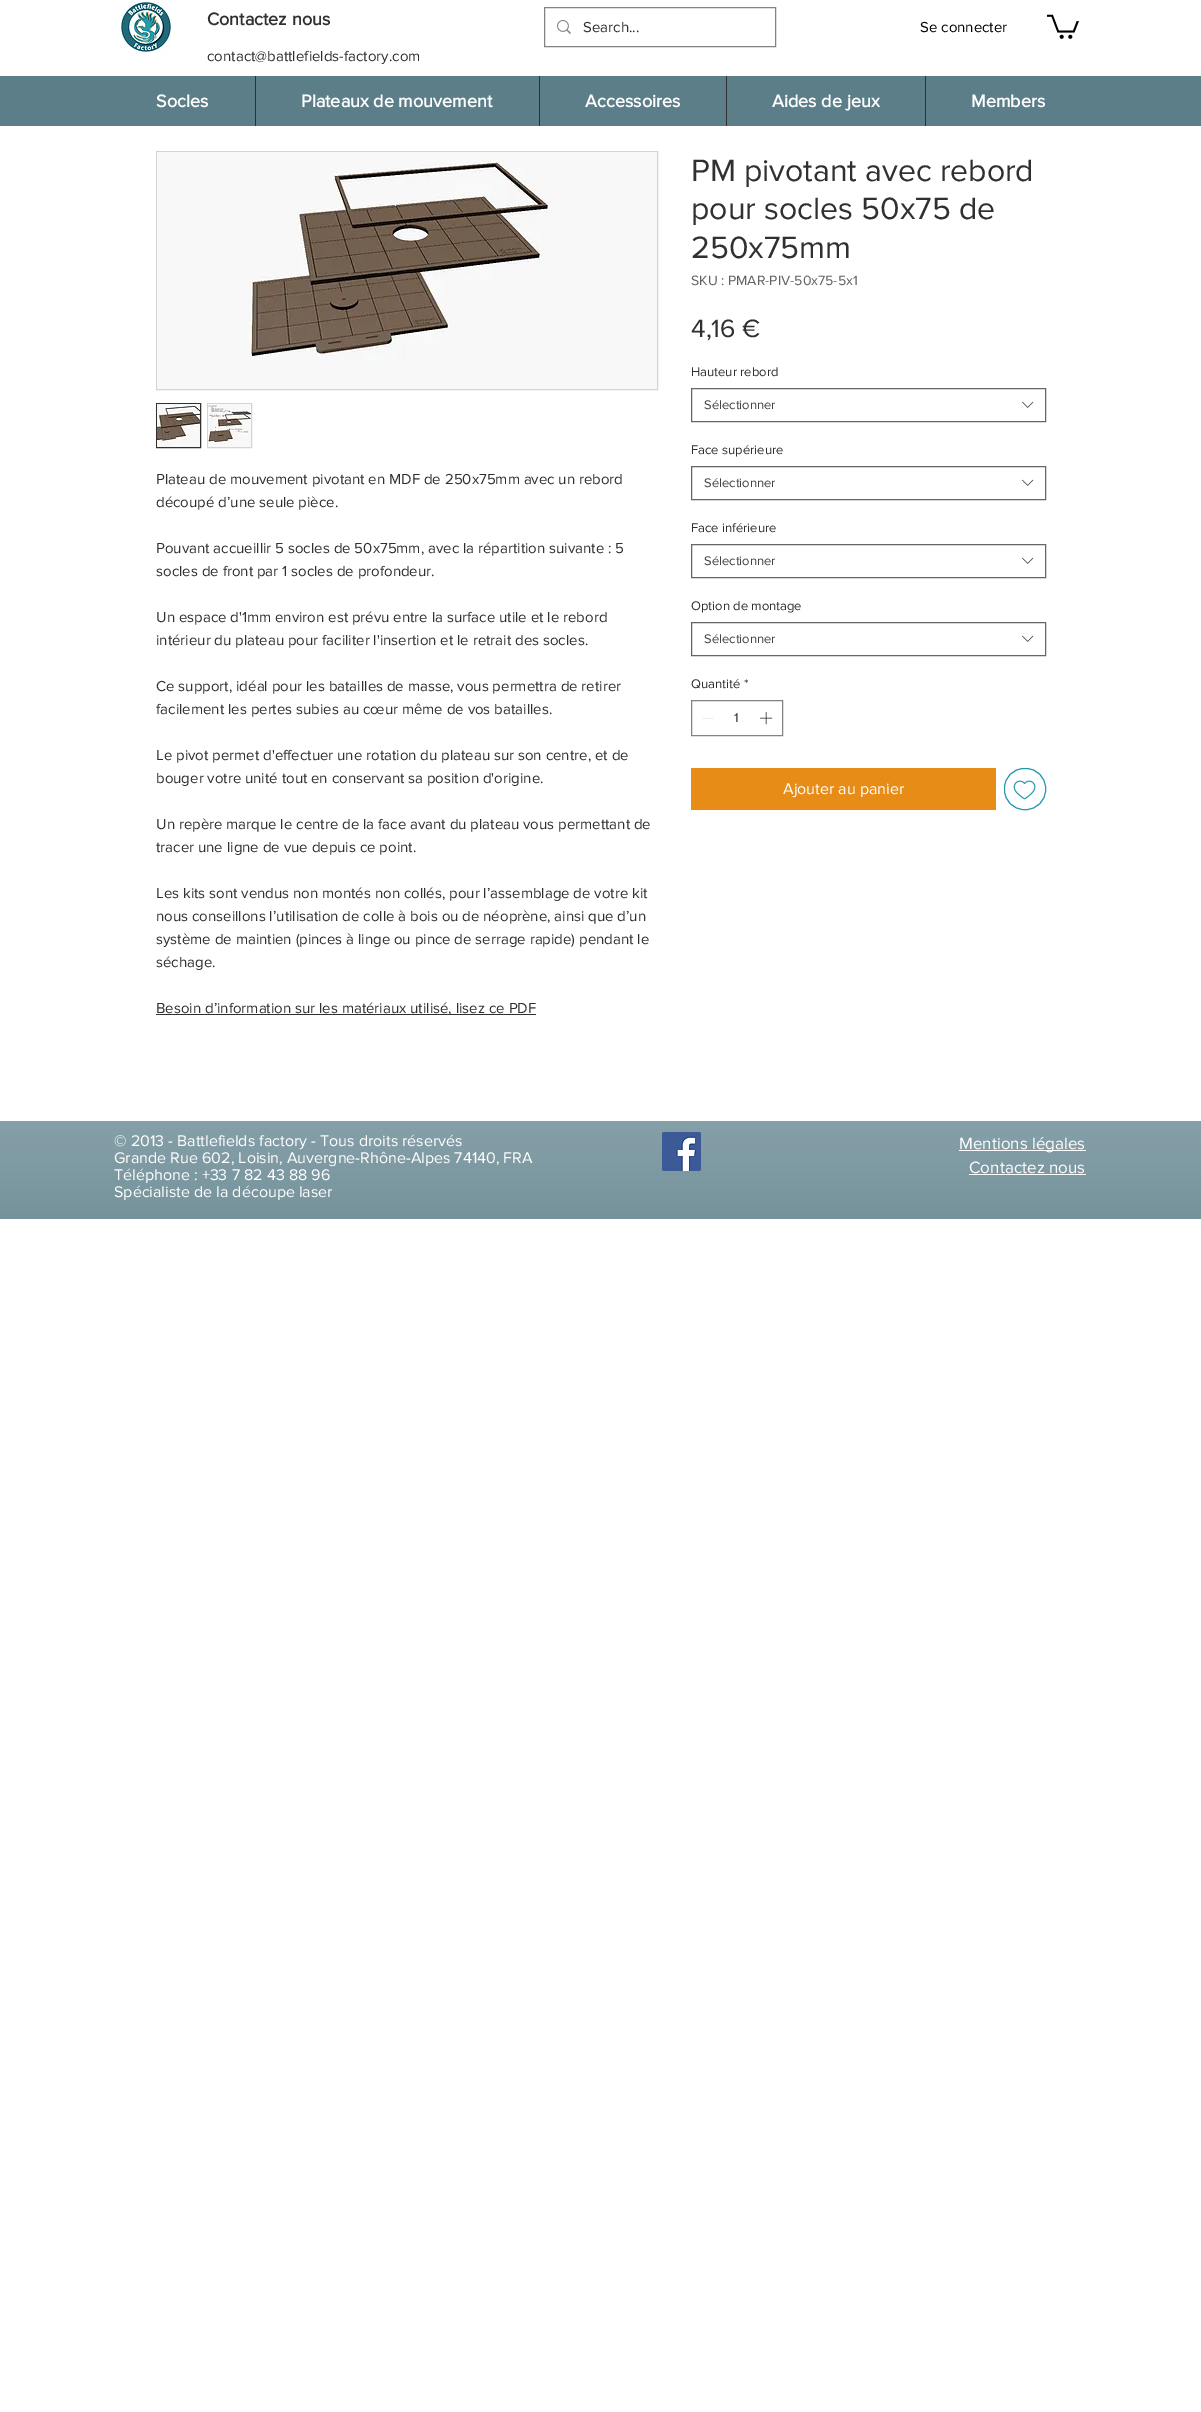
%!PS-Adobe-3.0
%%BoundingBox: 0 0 1201 2412
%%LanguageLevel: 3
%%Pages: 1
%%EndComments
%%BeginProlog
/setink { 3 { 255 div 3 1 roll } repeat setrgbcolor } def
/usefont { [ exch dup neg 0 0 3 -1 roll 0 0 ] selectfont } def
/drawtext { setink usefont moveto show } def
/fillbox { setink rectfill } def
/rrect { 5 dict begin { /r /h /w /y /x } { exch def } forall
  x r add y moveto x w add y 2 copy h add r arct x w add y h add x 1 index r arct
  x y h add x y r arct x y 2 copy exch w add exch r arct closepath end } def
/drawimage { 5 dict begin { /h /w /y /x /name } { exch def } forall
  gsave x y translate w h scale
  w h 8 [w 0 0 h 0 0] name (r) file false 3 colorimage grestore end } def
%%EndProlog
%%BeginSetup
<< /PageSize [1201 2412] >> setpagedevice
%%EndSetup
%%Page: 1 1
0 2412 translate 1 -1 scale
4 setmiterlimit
0 0 1201 2412 255 255 255 fillbox
(assets/img1.rgb) 121 2 50 50 drawimage
(Contactez nous) 207 25 /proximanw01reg-Bold 18 48 48 48 drawtext
131 131 131 setink
544.5 7.5 231 39 rectstroke
(assets/img2.rgb) 557 20 14 14 drawimage
(Search...) 583 32 /proximanw01reg-Regular 15 48 48 48 drawtext
(Se connecter) 920 32 /proximanw01reg-Regular 15 0 0 0 drawtext
(assets/img3.rgb) 1047 14 32 25 drawimage
(contact@battlefields-factory.com) 207 61 /proximanw01reg-Regular 15 48 48 48 drawtext
0 76 1201 50 91 126 137 fillbox
(Socles) 156 107 /proximanw01reg-Bold 18 255 255 255 drawtext
255 76 1 50 48 48 48 fillbox
(Plateaux de mouvement) 301 107 /proximanw01reg-Bold 18 255 255 255 drawtext
539 76 1 50 48 48 48 fillbox
(Accessoires) 585 107 /proximanw01reg-Bold 18 255 255 255 drawtext
726 76 1 50 48 48 48 fillbox
(Aides de jeux) 772 107 /proximanw01reg-Bold 18 255 255 255 drawtext
925 76 1 50 48 48 48 fillbox
(Members) 971 107 /proximanw01reg-Bold 18 255 255 255 drawtext
212 212 212 setink
156.5 151.5 501 238 rectstroke
(assets/img4.rgb) 157 152 500 237 drawimage
48 48 48 setink
156.5 403.5 44 44 rectstroke
(assets/img5.rgb) 157 404 43 43 drawimage
212 212 212 setink
207.5 403.5 44 44 rectstroke
(assets/img6.rgb) 208 404 43 43 drawimage
(Plateau de mouvement pivotant en MDF de 250x75mm avec un rebord) 156 484 /proximanw01reg-Regular 15 48 48 48 drawtext
(découpé d’une seule pièce.) 156 507 /proximanw01reg-Regular 15 48 48 48 drawtext
(Pouvant accueillir 5 socles de 50x75mm, avec la répartition suivante : 5) 156 553 /proximanw01reg-Regular 15 48 48 48 drawtext
(socles de front par 1 socles de profondeur.) 156 576 /proximanw01reg-Regular 15 48 48 48 drawtext
(Un espace d'1mm environ est prévu entre la surface utile et le rebord) 156 622 /proximanw01reg-Regular 15 48 48 48 drawtext
(intérieur du plateau pour faciliter l'insertion et le retrait des socles.) 156 645 /proximanw01reg-Regular 15 48 48 48 drawtext
(Ce support, idéal pour les batailles de masse, vous permettra de retirer) 156 691 /proximanw01reg-Regular 15 48 48 48 drawtext
(facilement les pertes subies au cœur même de vos batailles.) 156 714 /proximanw01reg-Regular 15 48 48 48 drawtext
(Le pivot permet d'effectuer une rotation du plateau sur son centre, et de) 156 760 /proximanw01reg-Regular 15 48 48 48 drawtext
(bouger votre unité tout en conservant sa position d'origine.) 156 783 /proximanw01reg-Regular 15 48 48 48 drawtext
(Un repère marque le centre de la face avant du plateau vous permettant de) 156 829 /proximanw01reg-Regular 15 48 48 48 drawtext
(tracer une ligne de vue depuis ce point.) 156 852 /proximanw01reg-Regular 15 48 48 48 drawtext
(Les kits sont vendus non montés non collés, pour l’assemblage de votre kit) 156 898 /proximanw01reg-Regular 15 48 48 48 drawtext
(nous conseillons l’utilisation de colle à bois ou de néoprène, ainsi que d’un) 156 921 /proximanw01reg-Regular 15 48 48 48 drawtext
(système de maintien \(pinces à linge ou pince de serrage rapide\) pendant le) 156 944 /proximanw01reg-Regular 15 48 48 48 drawtext
(séchage.) 156 967 /proximanw01reg-Regular 15 48 48 48 drawtext
156 1014 380 1 48 48 48 fillbox
(Besoin d’information sur les matériaux utilisé, lisez ce PDF) 156 1013 /proximanw01reg-Regular 15 48 48 48 drawtext
(PM pivotant avec rebord) 691 181 /proximanw01reg-Regular 32 48 48 48 drawtext
(pour socles 50x75 de) 691 219 /proximanw01reg-Regular 32 48 48 48 drawtext
(250x75mm) 691 258 /proximanw01reg-Regular 32 48 48 48 drawtext
(SKU : PMAR-PIV-50x75-5x1) 691 285 /proximanw01reg-Regular 14 96 96 96 drawtext
(4,16 €) 691 337 /proximanw01reg-Regular 26 48 48 48 drawtext
(Hauteur rebord) 691 376 /proximanw01reg-Regular 13 48 48 48 drawtext
102 102 102 setink
691.5 388.5 354 33 rectstroke
(Sélectionner) 704 409 /proximanw01reg-Regular 13 68 68 68 drawtext
(assets/img7.rgb) 1022 401 12 7 drawimage
(Face supérieure) 691 454 /proximanw01reg-Regular 13 48 48 48 drawtext
102 102 102 setink
691.5 466.5 354 33 rectstroke
(Sélectionner) 704 487 /proximanw01reg-Regular 13 68 68 68 drawtext
(assets/img7.rgb) 1022 479 12 7 drawimage
(Face inférieure) 691 532 /proximanw01reg-Regular 13 48 48 48 drawtext
102 102 102 setink
691.5 544.5 354 33 rectstroke
(Sélectionner) 704 565 /proximanw01reg-Regular 13 68 68 68 drawtext
(assets/img7.rgb) 1022 557 12 7 drawimage
(Option de montage) 691 610 /proximanw01reg-Regular 13 48 48 48 drawtext
102 102 102 setink
691.5 622.5 354 33 rectstroke
(Sélectionner) 704 643 /proximanw01reg-Regular 13 68 68 68 drawtext
(assets/img7.rgb) 1022 635 12 7 drawimage
(Quantité) 691 688 /proximanw01reg-Regular 13 48 48 48 drawtext
(*) 744 688 /proximanw01reg-Regular 13 48 48 48 drawtext
131 131 131 setink
691.5 700.5 91 35 rectstroke
227 227 227 setink
714 718 moveto 714 718.5 lineto 702 718.5 lineto 702 718 lineto closepath eofill
(1) 734 722 /proximanw01reg-Regular 13 48 48 48 drawtext
(assets/img8.rgb) 760 712 13 13 drawimage
691 768 305 42 231 140 23 fillbox
(Ajouter au panier) 783 794 /proximanw01reg-Regular 16 255 255 255 drawtext
36 154 172 setink
1004.5 768.5 41 41 19.5 rrect stroke
(assets/img9.rgb) 1013 780 23 20 drawimage
0 1121 1201 98 91 126 137 fillbox
(assets/img10.rgb) 0 1121 1201 98 drawimage
(© 2013 - Battlefields factory - Tous droits réservés) 114 1146 /proximanw01reg-Regular 16 255 255 255 drawtext
(Grande Rue 602, Loisin, Auvergne-Rhône-Alpes 74140, FRA) 114 1163 /proximanw01reg-Regular 16 255 255 255 drawtext
(Téléphone : +33 7 82 43 88 96) 114 1180 /proximanw01reg-Regular 16 255 255 255 drawtext
(Spécialiste de la découpe laser) 114 1197 /proximanw01reg-Regular 16 255 255 255 drawtext
(assets/img11.rgb) 662 1132 39 39 drawimage
959 1150 127 1 255 255 255 fillbox
(Mentions légales) 959 1149 /proximanw01reg-Regular 17 255 255 255 drawtext
(Contactez nous) 969 1173 /proximanw01reg-Regular 17 255 255 255 drawtext
969 1174 117 1 255 255 255 fillbox
showpage
%%EOF
